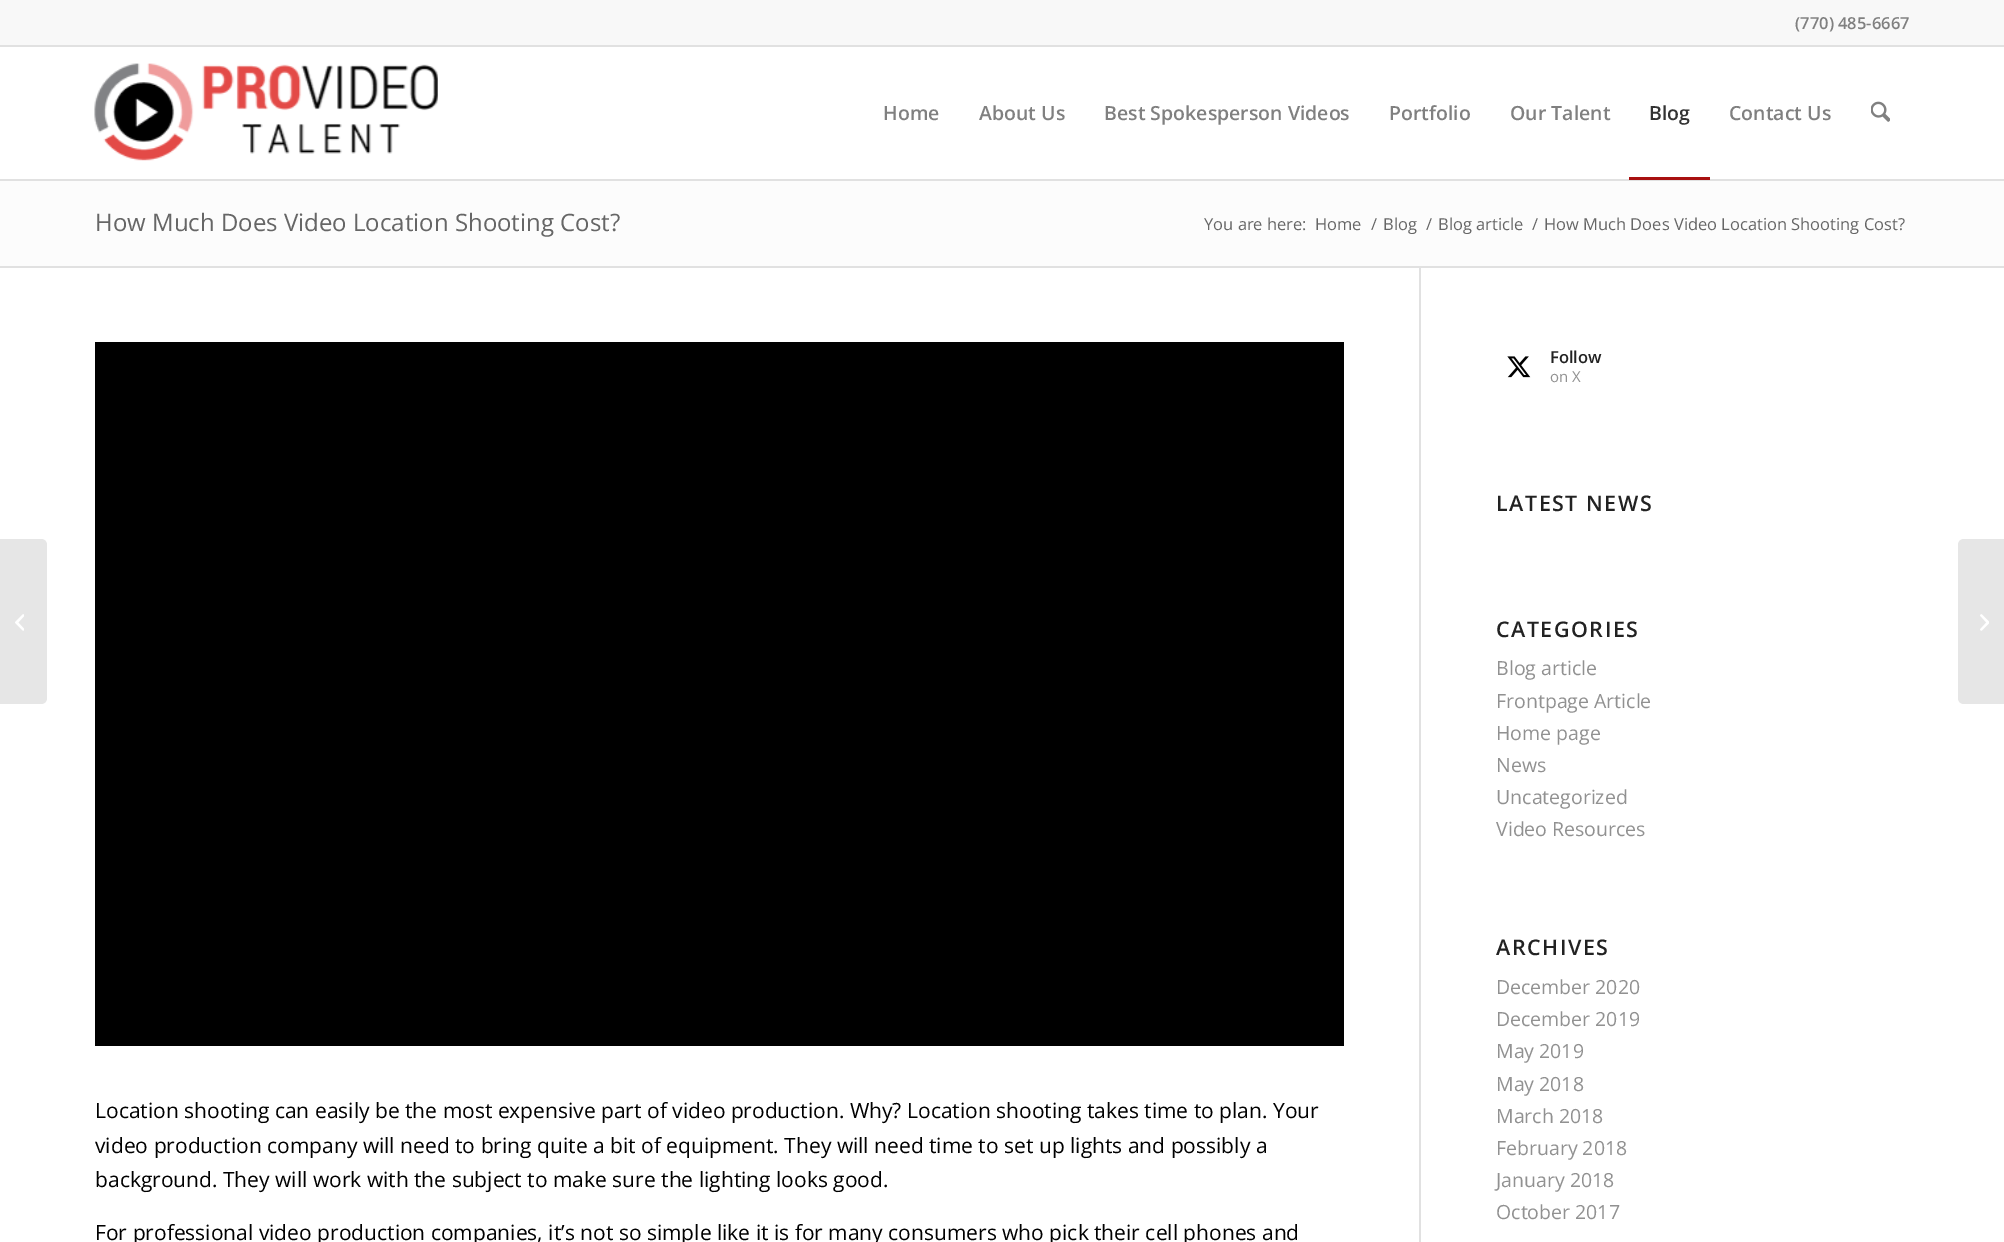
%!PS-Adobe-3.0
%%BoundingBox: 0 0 2004 1242
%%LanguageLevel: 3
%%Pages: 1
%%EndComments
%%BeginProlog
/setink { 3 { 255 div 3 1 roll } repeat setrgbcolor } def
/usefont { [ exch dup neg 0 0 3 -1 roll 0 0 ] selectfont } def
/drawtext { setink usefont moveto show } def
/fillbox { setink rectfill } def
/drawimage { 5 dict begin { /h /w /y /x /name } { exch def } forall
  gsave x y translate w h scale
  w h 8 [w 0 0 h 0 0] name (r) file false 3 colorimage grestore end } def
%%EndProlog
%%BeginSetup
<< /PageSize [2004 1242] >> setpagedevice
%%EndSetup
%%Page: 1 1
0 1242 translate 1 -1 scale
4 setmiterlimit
0 0 2004 1242 255 255 255 fillbox
0 0 2004 45 248 248 248 fillbox
0 45 2004 2 225 225 225 fillbox
(\(770\) 485-6667) 1795 29 /OpenSans-SemiBold 16.5 128 128 128 drawtext
0 179 2004 2 225 225 225 fillbox
(assets/img1.rgb) 94 63 344 98 drawimage
(Home) 883 120 /OpenSans-SemiBold 19.5 128 128 128 drawtext
(About Us) 979 120 /OpenSans-SemiBold 19.5 128 128 128 drawtext
(Best Spokesperson Videos) 1104 120 /OpenSans-SemiBold 19.5 128 128 128 drawtext
(Portfolio) 1389 120 /OpenSans-SemiBold 19.5 128 128 128 drawtext
(Our Talent) 1510 120 /OpenSans-SemiBold 19.5 128 128 128 drawtext
(Blog) 1649 120 /OpenSans-SemiBold 19.5 51 51 51 drawtext
1629 177 81 3 168 16 16 fillbox
(Contact Us) 1729 120 /OpenSans-SemiBold 19.5 128 128 128 drawtext
(assets/img2.rgb) 1871 101 19 21 drawimage
230 230 230 setink
0 539 moveto 41 539 lineto 44.5 539 47 541.5 47 545 curveto 47 698 lineto 47 701.5 44.5 704 41 704 curveto 0 704 lineto closepath fill
(assets/img3.rgb) 15 614 9 17 drawimage
0 181 2004 85 252 252 252 fillbox
(How Much Does Video Location Shooting Cost?) 95 231 /OpenSans-Regular 24 102 102 102 drawtext
(You are here:) 1204 230 /OpenSans-Regular 16.5 102 102 102 drawtext
(Home) 1315 230 /OpenSans-Regular 16.5 102 102 102 drawtext
(/) 1371 230 /OpenSans-Regular 16.5 102 102 102 drawtext
(Blog) 1383 230 /OpenSans-Regular 16.5 102 102 102 drawtext
(/) 1426 230 /OpenSans-Regular 16.5 102 102 102 drawtext
(Blog article) 1438 230 /OpenSans-Regular 16.5 102 102 102 drawtext
(/) 1532 230 /OpenSans-Regular 16.5 102 102 102 drawtext
(How Much Does Video Location Shooting Cost?) 1544 230 /OpenSans-Regular 16.5 102 102 102 drawtext
0 266 2004 2 225 225 225 fillbox
1419 267 2 975 225 225 225 fillbox
95 342 1249 704 0 0 0 fillbox
(Location shooting can easily be the most expensive part of video production. Why? Location shooting takes time to plan. Your) 95 1118 /OpenSans-Regular 21 0 0 0 drawtext
(video production company will need to bring quite a bit of equipment. They will need time to set up lights and possibly a) 95 1153 /OpenSans-Regular 21 0 0 0 drawtext
(background. They will work with the subject to make sure the lighting looks good.) 95 1187 /OpenSans-Regular 21 0 0 0 drawtext
(For professional video production companies, it’s not so simple like it is for many consumers who pick their cell phones and) 95 1240 /OpenSans-Regular 21 0 0 0 drawtext
(assets/img4.rgb) 1507 356 24 22 drawimage
(Follow) 1550 363 /OpenSans-SemiBold 16.5 34 34 34 drawtext
(on X) 1550 382 /OpenSans-Regular 15 145 145 145 drawtext
/OpenSans-SemiBold 21.5 usefont
34 34 34 setink
1496 511 moveto 1.5 0 (LATEST NEWS) ashow
1496 637 moveto 1.5 0 (CATEGORIES) ashow
(Blog article) 1496 675 /OpenSans-Regular 19.5 145 145 145 drawtext
(Frontpage Article) 1496 708 /OpenSans-Regular 19.5 145 145 145 drawtext
(Home page) 1496 740 /OpenSans-Regular 19.5 145 145 145 drawtext
(News) 1496 772 /OpenSans-Regular 19.5 145 145 145 drawtext
(Uncategorized) 1496 804 /OpenSans-Regular 19.5 145 145 145 drawtext
(Video Resources) 1496 836 /OpenSans-Regular 19.5 145 145 145 drawtext
/OpenSans-SemiBold 21.5 usefont
34 34 34 setink
1496 955 moveto 1.5 0 (ARCHIVES) ashow
(December 2020) 1496 994 /OpenSans-Regular 19.5 145 145 145 drawtext
(December 2019) 1496 1026 /OpenSans-Regular 19.5 145 145 145 drawtext
(May 2019) 1496 1058 /OpenSans-Regular 19.5 145 145 145 drawtext
(May 2018) 1496 1091 /OpenSans-Regular 19.5 145 145 145 drawtext
(March 2018) 1496 1123 /OpenSans-Regular 19.5 145 145 145 drawtext
(February 2018) 1496 1155 /OpenSans-Regular 19.5 145 145 145 drawtext
(January 2018) 1496 1187 /OpenSans-Regular 19.5 145 145 145 drawtext
(October 2017) 1496 1219 /OpenSans-Regular 19.5 145 145 145 drawtext
230 230 230 setink
1964 539 moveto 2004 539 lineto 2004 704 lineto 1964 704 lineto 1960.5 704 1958 701.5 1958 698 curveto 1958 545 lineto 1958 541.5 1960.5 539 1964 539 curveto closepath fill
(assets/img5.rgb) 1980 614 9 17 drawimage
showpage
%%EOF
